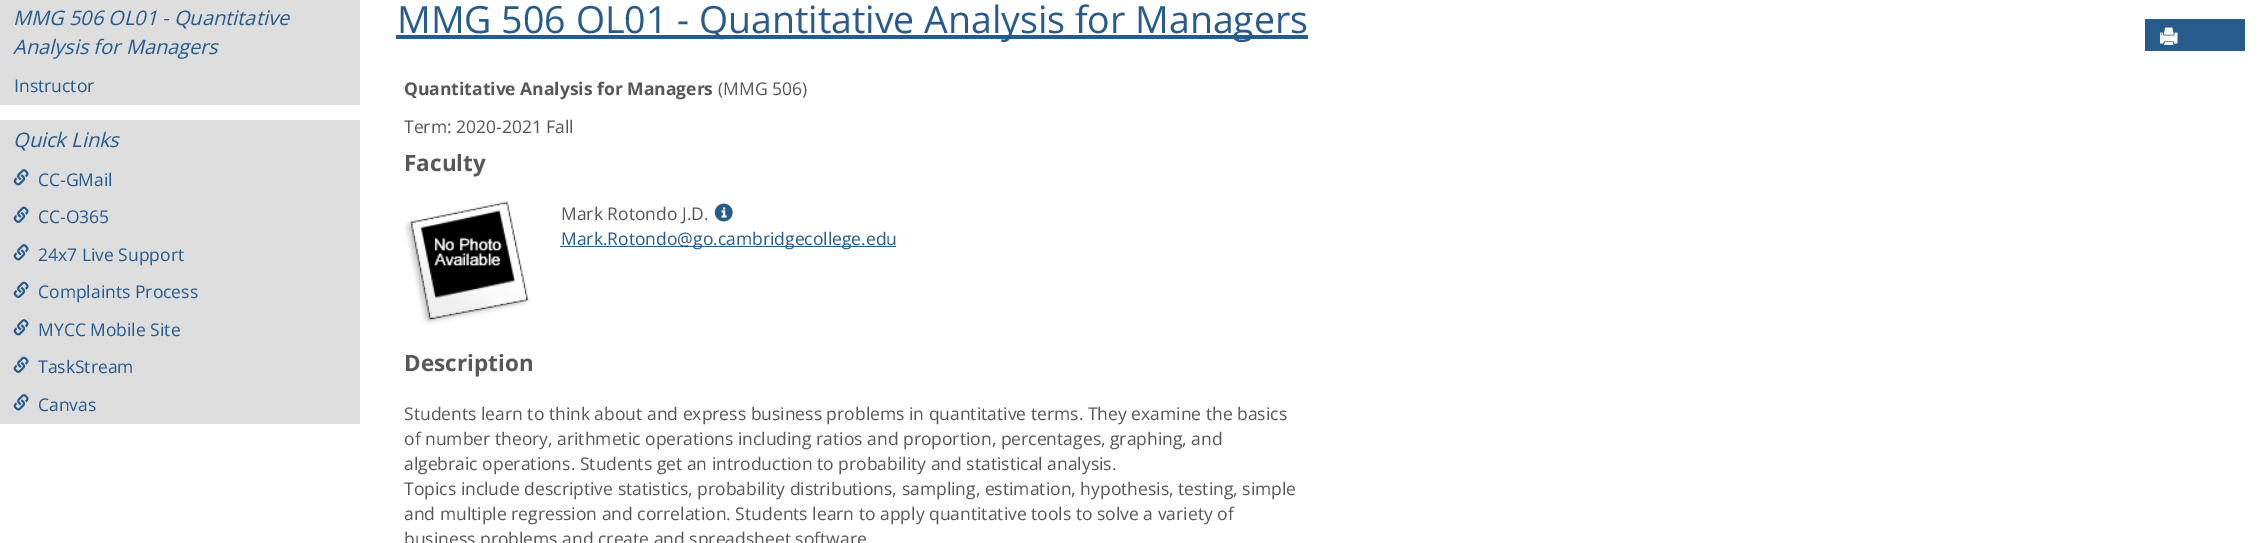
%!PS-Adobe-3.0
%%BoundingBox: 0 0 2263 543
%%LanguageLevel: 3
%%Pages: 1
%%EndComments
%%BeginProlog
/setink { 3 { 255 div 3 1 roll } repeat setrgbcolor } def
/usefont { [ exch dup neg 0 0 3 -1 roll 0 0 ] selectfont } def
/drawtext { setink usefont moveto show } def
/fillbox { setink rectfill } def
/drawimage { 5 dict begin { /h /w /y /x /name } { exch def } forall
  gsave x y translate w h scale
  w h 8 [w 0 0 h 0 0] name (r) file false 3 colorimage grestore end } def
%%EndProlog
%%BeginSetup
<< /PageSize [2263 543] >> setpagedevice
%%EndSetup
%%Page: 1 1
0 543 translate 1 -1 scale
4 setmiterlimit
0 0 2263 543 255 255 255 fillbox
0 0 360 424 222 222 222 fillbox
(MMG 506 OL01 - Quantitative) 13 25 /OpenSans-Italic 20 38 91 140 drawtext
(Analysis for Managers) 13 54 /OpenSans-Italic 20 38 91 140 drawtext
(Instructor) 14 92 /OpenSans-Regular 17.5 38 91 140 drawtext
0 105 360 15 255 255 255 fillbox
(Quick Links) 13 147 /OpenSans-Italic 20 38 91 140 drawtext
(assets/img1.rgb) 13 169 16 17 drawimage
(CC-GMail) 38 186 /OpenSans-Regular 17.5 38 91 140 drawtext
(assets/img2.rgb) 13 206 16 17 drawimage
(CC-O365) 38 223 /OpenSans-Regular 17.5 38 91 140 drawtext
(assets/img1.rgb) 13 244 16 17 drawimage
(24x7 Live Support) 38 261 /OpenSans-Regular 17.5 38 91 140 drawtext
(assets/img2.rgb) 13 281 16 17 drawimage
(Complaints Process) 38 298 /OpenSans-Regular 17.5 38 91 140 drawtext
(assets/img1.rgb) 13 319 16 17 drawimage
(MYCC Mobile Site) 38 336 /OpenSans-Regular 17.5 38 91 140 drawtext
(assets/img2.rgb) 13 356 16 17 drawimage
(TaskStream) 38 373 /OpenSans-Regular 17.5 38 91 140 drawtext
(assets/img1.rgb) 13 394 16 17 drawimage
(Canvas) 38 411 /OpenSans-Regular 17.5 38 91 140 drawtext
396 35 912 4 38 91 140 fillbox
(MMG 506 OL01 - Quantitative Analysis for Managers) 397 33 /OpenSans-Regular 37.5 38 91 140 drawtext
2145 19 100 32 38 91 140 fillbox
(assets/img3.rgb) 2160 27 18 18 drawimage
(Quantitative Analysis for Managers) 404 95 /OpenSans-Bold 17.5 87 87 87 drawtext
(\(MMG 506\)) 718 95 /OpenSans-Regular 17.5 87 87 87 drawtext
(Term: 2020-2021 Fall) 404 133 /OpenSans-Regular 17.5 87 87 87 drawtext
(Faculty) 404 171 /OpenSans-Bold 22.5 87 87 87 drawtext
(assets/img4.rgb) 404 201 125 124 drawimage
(Mark Rotondo J.D.) 561 220 /OpenSans-Regular 17.5 87 87 87 drawtext
(assets/img5.rgb) 714 203 19 19 drawimage
560 246 336 1 38 91 140 fillbox
(Mark.Rotondo@go.cambridgecollege.edu) 561 245 /OpenSans-Regular 17.5 38 91 140 drawtext
(Description) 404 371 /OpenSans-Bold 22.5 87 87 87 drawtext
(Students learn to think about and express business problems in quantitative terms. They examine the basics) 404 420 /OpenSans-Regular 17.5 87 87 87 drawtext
(of number theory, arithmetic operations including ratios and proportion, percentages, graphing, and) 404 445 /OpenSans-Regular 17.5 87 87 87 drawtext
(algebraic operations. Students get an introduction to probability and statistical analysis.) 404 470 /OpenSans-Regular 17.5 87 87 87 drawtext
(Topics include descriptive statistics, probability distributions, sampling, estimation, hypothesis, testing, simple) 404 495 /OpenSans-Regular 17.5 87 87 87 drawtext
(and multiple regression and correlation. Students learn to apply quantitative tools to solve a variety of) 404 520 /OpenSans-Regular 17.5 87 87 87 drawtext
(business problems and create and spreadsheet software) 404 545 /OpenSans-Regular 17.5 87 87 87 drawtext
showpage
%%EOF
